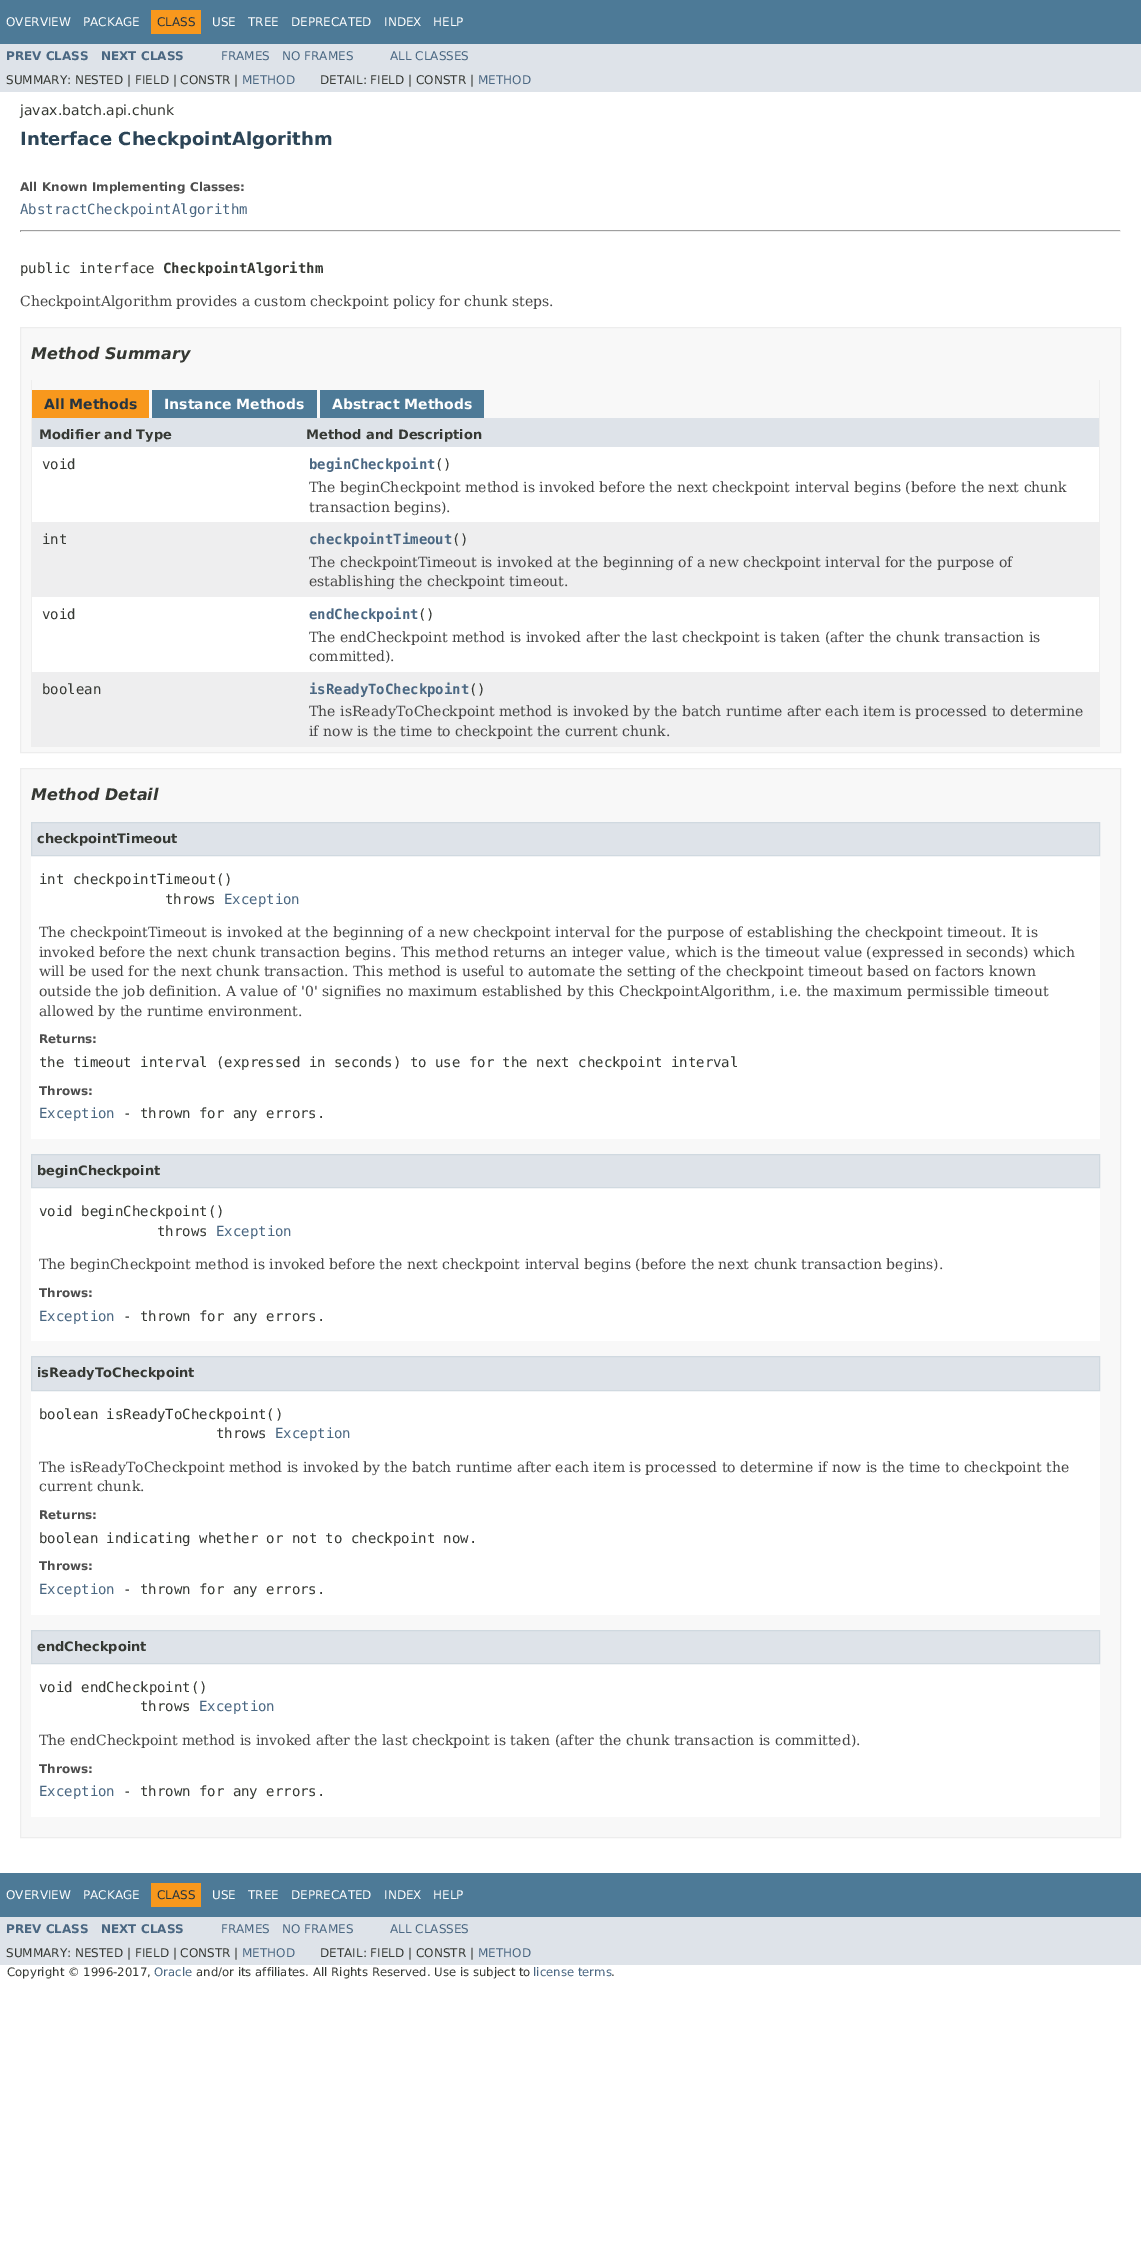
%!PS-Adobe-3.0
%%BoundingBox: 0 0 1141 2243
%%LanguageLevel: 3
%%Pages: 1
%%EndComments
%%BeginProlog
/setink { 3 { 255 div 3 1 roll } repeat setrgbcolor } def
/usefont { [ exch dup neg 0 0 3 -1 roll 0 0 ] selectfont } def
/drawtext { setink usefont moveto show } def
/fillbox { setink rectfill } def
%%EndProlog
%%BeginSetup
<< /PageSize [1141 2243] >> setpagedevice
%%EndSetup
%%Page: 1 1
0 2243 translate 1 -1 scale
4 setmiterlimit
0 0 1141 2243 255 255 255 fillbox
0 0 1141 44 77 122 151 fillbox
(OVERVIEW) 6 26 /DejaVuSans-Regular 12 255 255 255 drawtext
(PACKAGE) 83 26 /DejaVuSans-Regular 12 255 255 255 drawtext
151 10 50 24 248 152 29 fillbox
(CLASS) 157 26 /DejaVuSans-Regular 12 37 52 65 drawtext
(USE) 212 26 /DejaVuSans-Regular 12 255 255 255 drawtext
(TREE) 248 26 /DejaVuSans-Regular 12 255 255 255 drawtext
(DEPRECATED) 291 26 /DejaVuSans-Regular 12 255 255 255 drawtext
(INDEX) 384 26 /DejaVuSans-Regular 12 255 255 255 drawtext
(HELP) 433 26 /DejaVuSans-Regular 12 255 255 255 drawtext
0 44 1141 48 222 227 233 fillbox
(PREV CLASS) 6 60 /DejaVuSans-Bold 12 74 103 130 drawtext
(NEXT CLASS) 101 60 /DejaVuSans-Bold 12 74 103 130 drawtext
(FRAMES) 221 60 /DejaVuSans-Regular 12 74 103 130 drawtext
(NO FRAMES) 282 60 /DejaVuSans-Regular 12 74 103 130 drawtext
(ALL CLASSES) 390 60 /DejaVuSans-Regular 12 74 103 130 drawtext
(SUMMARY: NESTED | FIELD | CONSTR |) 6 84 /DejaVuSans-Regular 12 53 56 51 drawtext
(METHOD) 242 84 /DejaVuSans-Regular 12 74 103 130 drawtext
(DETAIL: FIELD | CONSTR |) 320 84 /DejaVuSans-Regular 12 53 56 51 drawtext
(METHOD) 478 84 /DejaVuSans-Regular 12 74 103 130 drawtext
(javax.batch.api.chunk) 20 115 /DejaVuSans-Regular 14 53 56 51 drawtext
(Interface CheckpointAlgorithm) 20 145 /DejaVuSans-Bold 18 44 69 87 drawtext
(All Known Implementing Classes:) 20 191 /DejaVuSans-Bold 12 78 78 78 drawtext
(AbstractCheckpointAlgorithm) 20 214 /DejaVuSansMono-Regular 14 74 103 130 drawtext
20 230 1101 1 159 159 159 fillbox
1120 230 1 2 238 238 238 fillbox
20 231 1101 1 238 238 238 fillbox
20 230 1 2 159 159 159 fillbox
(public interface) 20 273 /DejaVuSansMono-Regular 14 53 56 51 drawtext
(CheckpointAlgorithm) 163 273 /DejaVuSansMono-Bold 14 53 56 51 drawtext
(CheckpointAlgorithm provides a custom checkpoint policy for chunk steps.) 20 306 /DejaVuSerif-Regular 14 71 71 71 drawtext
248 248 248 setink
20.5 327.5 moveto 1120.5 327.5 lineto 1120.5 752.5 lineto 20.5 752.5 lineto closepath gsave fill grestore
237 237 237 setink
stroke
(Method Summary) 31 359 /DejaVuSans-BoldItalic 16 53 56 51 drawtext
1099 380 1 367 238 238 238 fillbox
31 746 1069 1 238 238 238 fillbox
31 380 1 367 238 238 238 fillbox
32 390 117 28 248 152 29 fillbox
(All Methods) 44 409 /DejaVuSans-Bold 14 37 52 65 drawtext
152 390 165 28 77 122 151 fillbox
(Instance Methods) 164 409 /DejaVuSans-Bold 14 255 255 255 drawtext
320 390 164 28 77 122 151 fillbox
(Abstract Methods) 332 409 /DejaVuSans-Bold 14 255 255 255 drawtext
32 418 1067 29 222 227 233 fillbox
(Modifier and Type) 39 439 /DejaVuSans-Bold 13 53 56 51 drawtext
(Method and Description) 306 439 /DejaVuSans-Bold 13 53 56 51 drawtext
32 447 1067 75 255 255 255 fillbox
(void) 42 469 /DejaVuSansMono-Regular 14 53 56 51 drawtext
(beginCheckpoint) 309 469 /DejaVuSansMono-Bold 14 74 103 130 drawtext
(\(\)) 435 469 /DejaVuSansMono-Regular 14 53 56 51 drawtext
(The beginCheckpoint method is invoked before the next checkpoint interval begins \(before the next chunk) 309 492 /DejaVuSerif-Regular 14 71 71 71 drawtext
(transaction begins\).) 309 512 /DejaVuSerif-Regular 14 71 71 71 drawtext
32 522 1067 75 238 238 239 fillbox
(int) 42 544 /DejaVuSansMono-Regular 14 53 56 51 drawtext
(checkpointTimeout) 309 544 /DejaVuSansMono-Bold 14 74 103 130 drawtext
(\(\)) 452 544 /DejaVuSansMono-Regular 14 53 56 51 drawtext
(The checkpointTimeout is invoked at the beginning of a new checkpoint interval for the purpose of) 309 567 /DejaVuSerif-Regular 14 71 71 71 drawtext
(establishing the checkpoint timeout.) 309 586 /DejaVuSerif-Regular 14 71 71 71 drawtext
32 597 1067 75 255 255 255 fillbox
(void) 42 619 /DejaVuSansMono-Regular 14 53 56 51 drawtext
(endCheckpoint) 309 619 /DejaVuSansMono-Bold 14 74 103 130 drawtext
(\(\)) 418 619 /DejaVuSansMono-Regular 14 53 56 51 drawtext
(The endCheckpoint method is invoked after the last checkpoint is taken \(after the chunk transaction is) 309 642 /DejaVuSerif-Regular 14 71 71 71 drawtext
(committed\).) 309 661 /DejaVuSerif-Regular 14 71 71 71 drawtext
32 672 1067 74 238 238 239 fillbox
(boolean) 42 694 /DejaVuSansMono-Regular 14 53 56 51 drawtext
(isReadyToCheckpoint) 309 694 /DejaVuSansMono-Bold 14 74 103 130 drawtext
(\(\)) 469 694 /DejaVuSansMono-Regular 14 53 56 51 drawtext
(The isReadyToCheckpoint method is invoked by the batch runtime after each item is processed to determine) 309 716 /DejaVuSerif-Regular 14 71 71 71 drawtext
(if now is the time to checkpoint the current chunk.) 309 736 /DejaVuSerif-Regular 14 71 71 71 drawtext
248 248 248 setink
20.5 768.5 moveto 1120.5 768.5 lineto 1120.5 1837.5 lineto 20.5 1837.5 lineto closepath gsave fill grestore
237 237 237 setink
stroke
(Method Detail) 31 800 /DejaVuSans-BoldItalic 16 53 56 51 drawtext
31 856 1069 283 255 255 255 fillbox
222 227 233 setink
31.5 822.5 moveto 1099.5 822.5 lineto 1099.5 855.5 lineto 31.5 855.5 lineto closepath gsave fill grestore
208 217 224 setink
stroke
(checkpointTimeout) 37 843 /DejaVuSans-Bold 13 53 56 51 drawtext
(int checkpointTimeout\(\)) 39 884 /DejaVuSansMono-Regular 14 53 56 51 drawtext
(throws) 165 904 /DejaVuSansMono-Regular 14 53 56 51 drawtext
(Exception) 224 904 /DejaVuSansMono-Regular 14 74 103 130 drawtext
(The checkpointTimeout is invoked at the beginning of a new checkpoint interval for the purpose of establishing the checkpoint timeout. It is) 39 937 /DejaVuSerif-Regular 14 71 71 71 drawtext
(invoked before the next chunk transaction begins. This method returns an integer value, which is the timeout value \(expressed in seconds\) which) 39 957 /DejaVuSerif-Regular 14 71 71 71 drawtext
(will be used for the next chunk transaction. This method is useful to automate the setting of the checkpoint timeout based on factors known) 39 976 /DejaVuSerif-Regular 14 71 71 71 drawtext
(outside the job definition. A value of '0' signifies no maximum established by this CheckpointAlgorithm, i.e. the maximum permissible timeout) 39 996 /DejaVuSerif-Regular 14 71 71 71 drawtext
(allowed by the runtime environment.) 39 1016 /DejaVuSerif-Regular 14 71 71 71 drawtext
(Returns:) 39 1043 /DejaVuSans-Bold 12 78 78 78 drawtext
(the timeout interval \(expressed in seconds\) to use for the next checkpoint interval) 39 1067 /DejaVuSansMono-Regular 14 53 56 51 drawtext
(Throws:) 39 1095 /DejaVuSans-Bold 12 78 78 78 drawtext
(Exception) 39 1118 /DejaVuSansMono-Regular 14 74 103 130 drawtext
(- thrown for any errors.) 123 1118 /DejaVuSansMono-Regular 14 53 56 51 drawtext
31 1188 1069 153 255 255 255 fillbox
222 227 233 setink
31.5 1154.5 moveto 1099.5 1154.5 lineto 1099.5 1187.5 lineto 31.5 1187.5 lineto closepath gsave fill grestore
208 217 224 setink
stroke
(beginCheckpoint) 37 1175 /DejaVuSans-Bold 13 53 56 51 drawtext
(void beginCheckpoint\(\)) 39 1216 /DejaVuSansMono-Regular 14 53 56 51 drawtext
(throws) 157 1236 /DejaVuSansMono-Regular 14 53 56 51 drawtext
(Exception) 216 1236 /DejaVuSansMono-Regular 14 74 103 130 drawtext
(The beginCheckpoint method is invoked before the next checkpoint interval begins \(before the next chunk transaction begins\).) 39 1269 /DejaVuSerif-Regular 14 71 71 71 drawtext
(Throws:) 39 1297 /DejaVuSans-Bold 12 78 78 78 drawtext
(Exception) 39 1321 /DejaVuSansMono-Regular 14 74 103 130 drawtext
(- thrown for any errors.) 123 1321 /DejaVuSansMono-Regular 14 53 56 51 drawtext
31 1391 1069 224 255 255 255 fillbox
222 227 233 setink
31.5 1356.5 moveto 1099.5 1356.5 lineto 1099.5 1390.5 lineto 31.5 1390.5 lineto closepath gsave fill grestore
208 217 224 setink
stroke
(isReadyToCheckpoint) 37 1377 /DejaVuSans-Bold 13 53 56 51 drawtext
(boolean isReadyToCheckpoint\(\)) 39 1419 /DejaVuSansMono-Regular 14 53 56 51 drawtext
(throws) 216 1438 /DejaVuSansMono-Regular 14 53 56 51 drawtext
(Exception) 275 1438 /DejaVuSansMono-Regular 14 74 103 130 drawtext
(The isReadyToCheckpoint method is invoked by the batch runtime after each item is processed to determine if now is the time to checkpoint the) 39 1472 /DejaVuSerif-Regular 14 71 71 71 drawtext
(current chunk.) 39 1491 /DejaVuSerif-Regular 14 71 71 71 drawtext
(Returns:) 39 1519 /DejaVuSans-Bold 12 78 78 78 drawtext
(boolean indicating whether or not to checkpoint now.) 39 1543 /DejaVuSansMono-Regular 14 53 56 51 drawtext
(Throws:) 39 1570 /DejaVuSans-Bold 12 78 78 78 drawtext
(Exception) 39 1594 /DejaVuSansMono-Regular 14 74 103 130 drawtext
(- thrown for any errors.) 123 1594 /DejaVuSansMono-Regular 14 53 56 51 drawtext
31 1664 1069 153 255 255 255 fillbox
222 227 233 setink
31.5 1630.5 moveto 1099.5 1630.5 lineto 1099.5 1663.5 lineto 31.5 1663.5 lineto closepath gsave fill grestore
208 217 224 setink
stroke
(endCheckpoint) 37 1651 /DejaVuSans-Bold 13 53 56 51 drawtext
(void endCheckpoint\(\)) 39 1692 /DejaVuSansMono-Regular 14 53 56 51 drawtext
(throws) 140 1711 /DejaVuSansMono-Regular 14 53 56 51 drawtext
(Exception) 199 1711 /DejaVuSansMono-Regular 14 74 103 130 drawtext
(The endCheckpoint method is invoked after the last checkpoint is taken \(after the chunk transaction is committed\).) 39 1745 /DejaVuSerif-Regular 14 71 71 71 drawtext
(Throws:) 39 1773 /DejaVuSans-Bold 12 78 78 78 drawtext
(Exception) 39 1796 /DejaVuSansMono-Regular 14 74 103 130 drawtext
(- thrown for any errors.) 123 1796 /DejaVuSansMono-Regular 14 53 56 51 drawtext
0 1873 1141 44 77 122 151 fillbox
(OVERVIEW) 6 1899 /DejaVuSans-Regular 12 255 255 255 drawtext
(PACKAGE) 83 1899 /DejaVuSans-Regular 12 255 255 255 drawtext
151 1883 50 24 248 152 29 fillbox
(CLASS) 157 1899 /DejaVuSans-Regular 12 37 52 65 drawtext
(USE) 212 1899 /DejaVuSans-Regular 12 255 255 255 drawtext
(TREE) 248 1899 /DejaVuSans-Regular 12 255 255 255 drawtext
(DEPRECATED) 291 1899 /DejaVuSans-Regular 12 255 255 255 drawtext
(INDEX) 384 1899 /DejaVuSans-Regular 12 255 255 255 drawtext
(HELP) 433 1899 /DejaVuSans-Regular 12 255 255 255 drawtext
0 1917 1141 48 222 227 233 fillbox
(PREV CLASS) 6 1933 /DejaVuSans-Bold 12 74 103 130 drawtext
(NEXT CLASS) 101 1933 /DejaVuSans-Bold 12 74 103 130 drawtext
(FRAMES) 221 1933 /DejaVuSans-Regular 12 74 103 130 drawtext
(NO FRAMES) 282 1933 /DejaVuSans-Regular 12 74 103 130 drawtext
(ALL CLASSES) 390 1933 /DejaVuSans-Regular 12 74 103 130 drawtext
(SUMMARY: NESTED | FIELD | CONSTR |) 6 1957 /DejaVuSans-Regular 12 53 56 51 drawtext
(METHOD) 242 1957 /DejaVuSans-Regular 12 74 103 130 drawtext
(DETAIL: FIELD | CONSTR |) 320 1957 /DejaVuSans-Regular 12 53 56 51 drawtext
(METHOD) 478 1957 /DejaVuSans-Regular 12 74 103 130 drawtext
(Copyright © 1996-2017,) 7 1976 /DejaVuSans-Regular 11.7 53 56 51 drawtext
(Oracle) 154 1976 /DejaVuSans-Regular 11.7 74 103 130 drawtext
(and/or its affiliates. All Rights Reserved. Use is subject to) 196 1976 /DejaVuSans-Regular 11.7 53 56 51 drawtext
(license terms) 533 1976 /DejaVuSans-Regular 11.7 74 103 130 drawtext
(.) 611 1976 /DejaVuSans-Regular 11.7 53 56 51 drawtext
showpage
%%EOF
